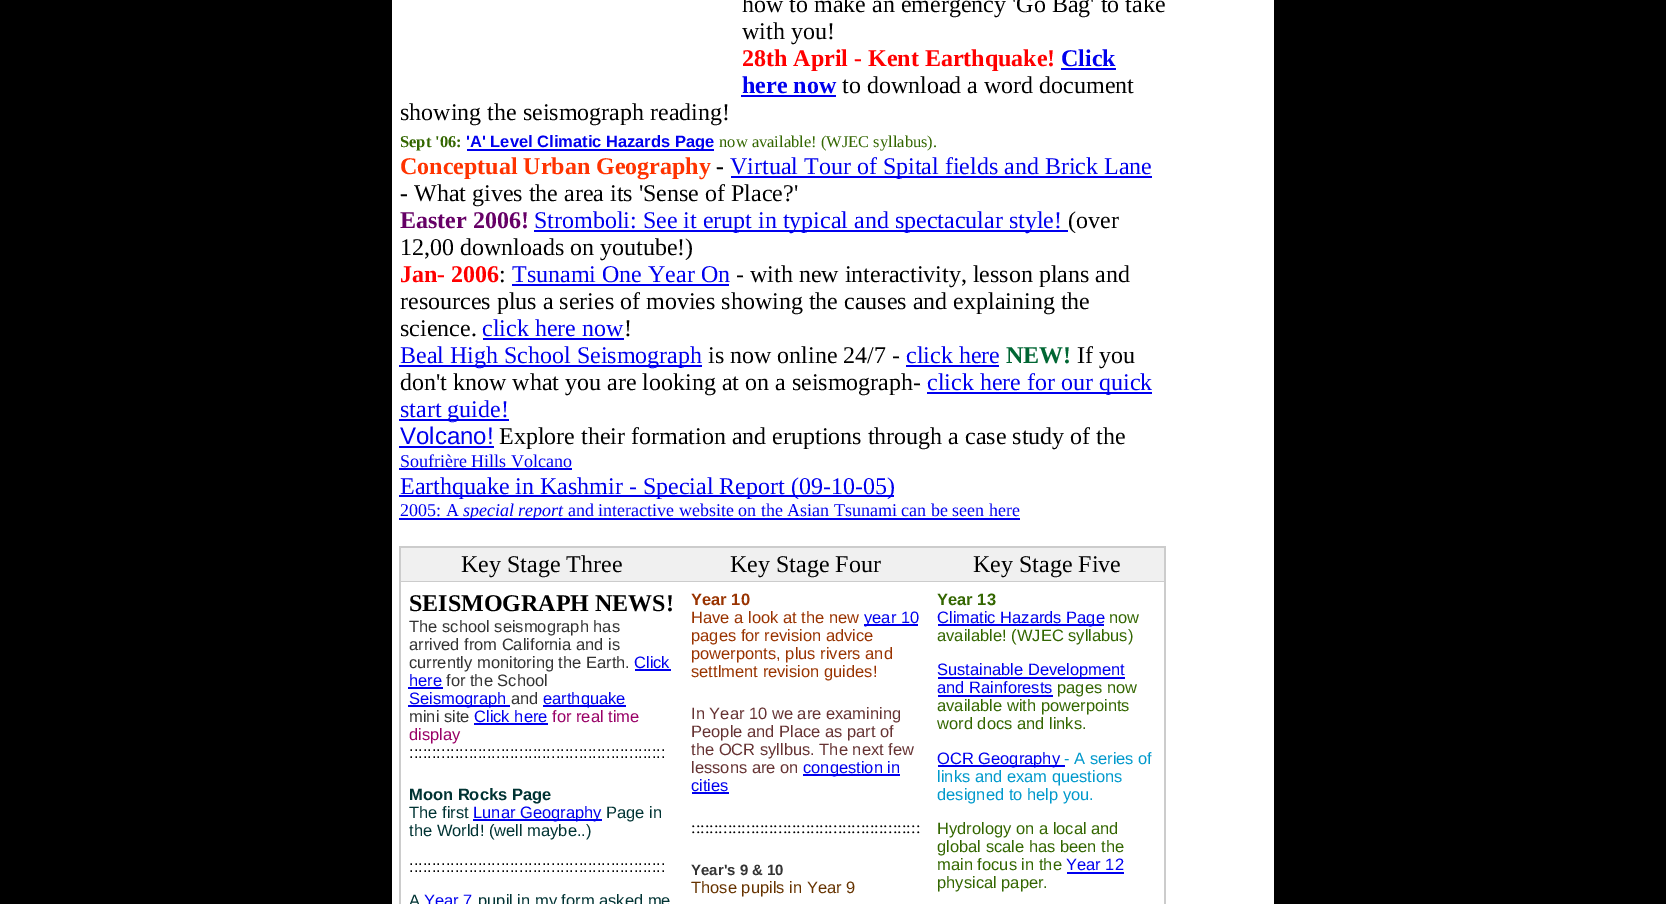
%!PS-Adobe-3.0
%%BoundingBox: 0 0 1666 904
%%LanguageLevel: 3
%%Pages: 1
%%EndComments
%%BeginProlog
/setink { 3 { 255 div 3 1 roll } repeat setrgbcolor } def
/usefont { [ exch dup neg 0 0 3 -1 roll 0 0 ] selectfont } def
/drawtext { setink usefont moveto show } def
/fillbox { setink rectfill } def
%%EndProlog
%%BeginSetup
<< /PageSize [1666 904] >> setpagedevice
%%EndSetup
%%Page: 1 1
0 904 translate 1 -1 scale
4 setmiterlimit
0 0 1666 904 0 0 0 fillbox
392 0 882 904 255 255 255 fillbox
(how to make an emergency 'Go Bag' to take) 742 12 /LiberationSerif-Regular 24 0 0 0 drawtext
(with you!) 742 39 /LiberationSerif-Regular 24 0 0 0 drawtext
(28th April - Kent Earthquake!) 742 66 /LiberationSerif-Bold 24 255 0 0 drawtext
(Click) 1061 66 /LiberationSerif-Bold 24 0 0 238 drawtext
1061 68 55 2 0 0 238 fillbox
(here now) 742 93 /LiberationSerif-Bold 24 0 0 238 drawtext
741 95 95 2 0 0 238 fillbox
(to download a word document) 842 93 /LiberationSerif-Regular 24 0 0 0 drawtext
(showing the seismograph reading!) 400 120 /LiberationSerif-Regular 24 0 0 0 drawtext
(Sept '06:) 400 147 /LiberationSerif-Bold 16.5 51 102 0 drawtext
467 149 247 2 0 0 238 fillbox
('A' Level Climatic Hazards Page) 466 147 /LiberationSans-Bold 16.5 0 0 238 drawtext
(now available! \(WJEC syllabus\).) 719 147 /LiberationSerif-Regular 16.5 51 102 0 drawtext
(Conceptual Urban Geography) 400 174 /LiberationSerif-Bold 24 255 51 0 drawtext
(-) 716 174 /LiberationSerif-Bold 24 0 0 0 drawtext
731 176 421 2 0 0 238 fillbox
(Virtual Tour of Spital fields and Brick Lane) 730 174 /LiberationSerif-Regular 24 0 0 238 drawtext
(-) 400 201 /LiberationSerif-Bold 24 0 0 0 drawtext
(What gives the area its 'Sense of Place?') 414 201 /LiberationSerif-Regular 24 0 0 0 drawtext
(Easter 2006!) 400 228 /LiberationSerif-Bold 24 102 0 102 drawtext
534 230 534 2 0 0 238 fillbox
(Stromboli: See it erupt in typical and spectacular style!) 534 228 /LiberationSerif-Regular 24 0 0 238 drawtext
(\(over) 1068 228 /LiberationSerif-Regular 24 0 0 0 drawtext
(12,00 downloads on youtube!\)) 400 255 /LiberationSerif-Regular 24 0 0 0 drawtext
(Jan- 2006) 400 282 /LiberationSerif-Bold 24 255 0 0 drawtext
(:) 499 282 /LiberationSerif-Regular 24 0 0 0 drawtext
(Tsunami One Year On) 512 282 /LiberationSerif-Regular 24 0 0 238 drawtext
512 284 217 2 0 0 238 fillbox
(- with new interactivity, lesson plans and) 736 282 /LiberationSerif-Regular 24 0 0 0 drawtext
(resources plus a series of movies showing the causes and explaining the) 400 309 /LiberationSerif-Regular 24 0 0 0 drawtext
(science.) 400 336 /LiberationSerif-Regular 24 0 0 0 drawtext
(click here now) 482 336 /LiberationSerif-Regular 24 0 0 238 drawtext
483 338 141 2 0 0 238 fillbox
(!) 624 336 /LiberationSerif-Regular 24 0 0 0 drawtext
399 365 303 2 0 0 238 fillbox
(Beal High School Seismograph) 400 363 /LiberationSerif-Regular 24 0 0 238 drawtext
(is now online 24/7 -) 708 363 /LiberationSerif-Regular 24 0 0 0 drawtext
(click here) 906 363 /LiberationSerif-Regular 24 0 0 238 drawtext
906 365 93 2 0 0 238 fillbox
(NEW!) 1006 363 /LiberationSerif-Bold 24 0 102 51 drawtext
(If you) 1077 363 /LiberationSerif-Regular 24 0 0 0 drawtext
(don't know what you are looking at on a seismograph-) 400 390 /LiberationSerif-Regular 24 0 0 0 drawtext
927 392 225 2 0 0 238 fillbox
(click here for our quick) 927 390 /LiberationSerif-Regular 24 0 0 238 drawtext
399 419 110 2 0 0 238 fillbox
(start guide!) 400 417 /LiberationSerif-Regular 24 0 0 238 drawtext
(Volcano!) 400 444 /LiberationSans-Regular 24 0 0 238 drawtext
399 446 95 2 0 0 238 fillbox
(Explore their formation and eruptions through a case study of the) 499 444 /LiberationSerif-Regular 24 0 0 0 drawtext
(Soufrière Hills Volcano) 400 467 /LiberationSerif-Regular 18 0 0 238 drawtext
399 468 173 2 0 0 238 fillbox
399 495 495 2 0 0 238 fillbox
(Earthquake in Kashmir - Special Report \(09-10-05\)) 400 494 /LiberationSerif-Regular 24 0 0 238 drawtext
(2005: A) 400 516 /LiberationSerif-Regular 18 0 0 238 drawtext
399 518 164 2 0 0 238 fillbox
(special report) 463 516 /LiberationSerif-Italic 18 0 0 238 drawtext
563 518 457 2 0 0 238 fillbox
(and interactive website on the Asian Tsunami can be seen here) 568 516 /LiberationSerif-Regular 18 0 0 238 drawtext
399 546 767 358 204 204 204 fillbox
401 548 763 33 240 240 240 fillbox
(Key Stage Three) 461 572 /LiberationSerif-Regular 24 0 0 0 drawtext
(Key Stage Four) 730 572 /LiberationSerif-Regular 24 0 0 0 drawtext
(Key Stage Five) 973 572 /LiberationSerif-Regular 24 0 0 0 drawtext
401 582 763 322 255 255 255 fillbox
(SEISMOGRAPH NEWS!) 409 611 /LiberationSerif-Bold 24 0 0 0 drawtext
(The school seismograph has) 409 632 /LiberationSans-Regular 16.5 51 51 51 drawtext
(arrived from California and is) 409 650 /LiberationSans-Regular 16.5 51 51 51 drawtext
(currently monitoring the Earth.) 409 668 /LiberationSans-Regular 16.5 51 51 51 drawtext
(Click) 634 668 /LiberationSans-Regular 16.5 0 0 238 drawtext
635 669 36 2 0 0 238 fillbox
(here) 409 686 /LiberationSans-Regular 16.5 0 0 238 drawtext
408 687 35 2 0 0 238 fillbox
(for the School) 446 686 /LiberationSans-Regular 16.5 51 51 51 drawtext
408 705 102 2 0 0 238 fillbox
(Seismograph) 409 704 /LiberationSans-Regular 16.5 0 0 238 drawtext
(and) 511 704 /LiberationSans-Regular 16.5 51 51 51 drawtext
543 705 83 2 0 0 238 fillbox
(earthquake) 543 704 /LiberationSans-Regular 16.5 0 0 238 drawtext
(mini site) 409 722 /LiberationSans-Regular 16.5 51 51 51 drawtext
(Click here) 474 722 /LiberationSans-Regular 16.5 0 0 238 drawtext
474 723 74 2 0 0 238 fillbox
(for real time) 552 722 /LiberationSans-Regular 16.5 153 0 102 drawtext
(display) 409 740 /LiberationSans-Regular 16.5 153 0 102 drawtext
(::::::::::::::::::::::::::::::::::::::::::::::::::::::::) 409 758 /LiberationSans-Regular 16.5 0 0 0 drawtext
(Moon Rocks Page) 409 800 /LiberationSans-Bold 16.5 0 51 51 drawtext
(The first) 409 818 /LiberationSans-Regular 16.5 0 51 51 drawtext
473 819 129 2 0 0 238 fillbox
(Lunar Geography) 473 818 /LiberationSans-Regular 16.5 0 0 238 drawtext
(Page in) 606 818 /LiberationSans-Regular 16.5 0 51 51 drawtext
(the World! \(well maybe..\)) 409 836 /LiberationSans-Regular 16.5 0 51 51 drawtext
(::::::::::::::::::::::::::::::::::::::::::::::::::::::::) 409 872 /LiberationSans-Regular 16.5 0 0 0 drawtext
(A) 409 906 /LiberationSans-Regular 16.5 0 51 51 drawtext
(Year 7) 424 906 /LiberationSans-Regular 16.5 0 0 238 drawtext
(pupil in my form asked me) 478 906 /LiberationSans-Regular 16.5 0 51 51 drawtext
(Year 10) 691 605 /LiberationSans-Bold 16.5 153 51 0 drawtext
(Have a look at the new) 691 623 /LiberationSans-Regular 16.5 153 51 0 drawtext
864 624 54 2 0 0 238 fillbox
(year 10) 864 623 /LiberationSans-Regular 16.5 0 0 238 drawtext
(pages for revision advice) 691 641 /LiberationSans-Regular 16.5 153 51 0 drawtext
(powerponts, plus rivers and) 691 659 /LiberationSans-Regular 16.5 153 51 0 drawtext
(settlment revision guides!) 691 677 /LiberationSans-Regular 16.5 153 51 0 drawtext
(In Year 10 we are examining) 691 719 /LiberationSans-Regular 16.5 102 51 51 drawtext
(People and Place as part of) 691 737 /LiberationSans-Regular 16.5 102 51 51 drawtext
(the OCR syllbus. The next few) 691 755 /LiberationSans-Regular 16.5 102 51 51 drawtext
(lessons are on) 691 773 /LiberationSans-Regular 16.5 102 51 51 drawtext
803 774 97 2 0 0 238 fillbox
(congestion in) 803 773 /LiberationSans-Regular 16.5 0 0 238 drawtext
(cities) 691 791 /LiberationSans-Regular 16.5 0 0 238 drawtext
692 792 37 2 0 0 238 fillbox
(::::::::::::::::::::::::::::::::::::::::::::::::::) 691 833 /LiberationSerif-Regular 16.5 0 0 0 drawtext
(Year's 9 & 10) 691 875 /LiberationSans-Bold 15 51 51 51 drawtext
(Those pupils in Year 9) 691 893 /LiberationSans-Regular 16.5 102 51 0 drawtext
(Year 13) 937 605 /LiberationSans-Bold 16.5 51 102 0 drawtext
938 624 166 2 0 0 238 fillbox
(Climatic Hazards Page) 937 623 /LiberationSans-Regular 16.5 0 0 238 drawtext
(now) 1109 623 /LiberationSans-Regular 16.5 51 102 0 drawtext
(available! \(WJEC syllabus\)) 937 641 /LiberationSans-Regular 16.5 51 102 0 drawtext
938 677 187 2 0 0 238 fillbox
(Sustainable Development) 937 675 /LiberationSans-Regular 16.5 0 0 238 drawtext
(and Rainforests) 937 693 /LiberationSans-Regular 16.5 0 0 238 drawtext
938 695 115 2 0 0 238 fillbox
(pages now) 1057 693 /LiberationSans-Regular 16.5 51 102 0 drawtext
(available with powerpoints) 937 711 /LiberationSans-Regular 16.5 51 102 0 drawtext
(word docs and links.) 937 729 /LiberationSans-Regular 16.5 51 102 0 drawtext
938 765 127 2 0 0 238 fillbox
(OCR Geography) 937 764 /LiberationSans-Regular 16.5 0 0 238 drawtext
(- A series of) 1064 764 /LiberationSans-Regular 16.5 0 153 204 drawtext
(links and exam questions) 937 782 /LiberationSans-Regular 16.5 0 153 204 drawtext
(designed to help you.) 937 800 /LiberationSans-Regular 16.5 0 153 204 drawtext
(Hydrology on a local and) 937 834 /LiberationSans-Regular 16.5 51 102 0 drawtext
(global scale has been the) 937 852 /LiberationSans-Regular 16.5 51 102 0 drawtext
(main focus in the) 937 870 /LiberationSans-Regular 16.5 51 102 0 drawtext
(Year 12) 1066 870 /LiberationSans-Regular 16.5 0 0 238 drawtext
1067 872 57 2 0 0 238 fillbox
(physical paper.) 937 888 /LiberationSans-Regular 16.5 51 102 0 drawtext
showpage
%%EOF
